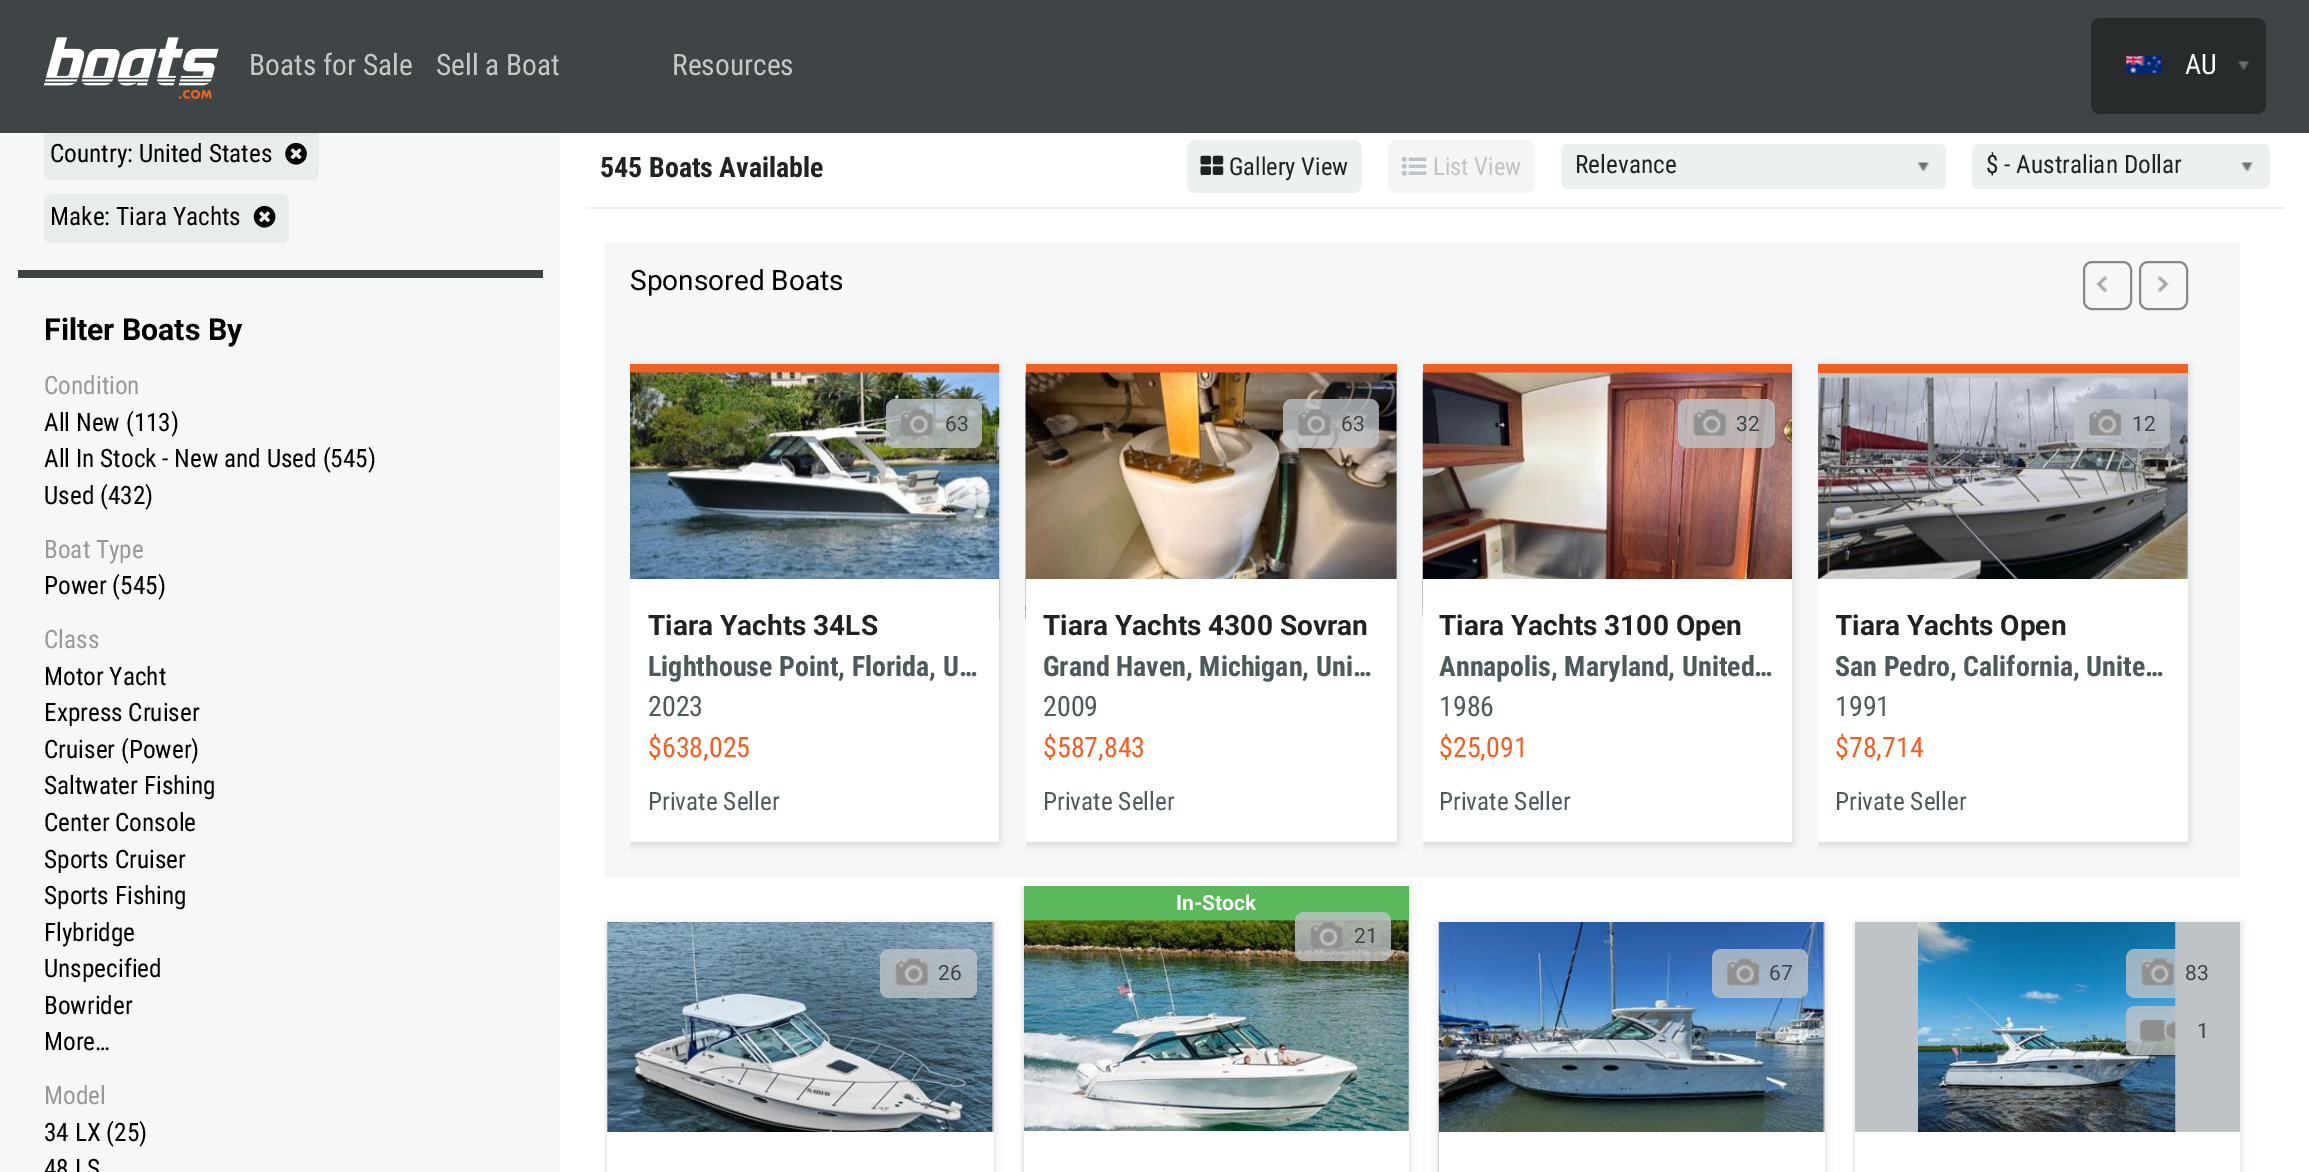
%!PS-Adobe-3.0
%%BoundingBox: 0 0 2309 1172
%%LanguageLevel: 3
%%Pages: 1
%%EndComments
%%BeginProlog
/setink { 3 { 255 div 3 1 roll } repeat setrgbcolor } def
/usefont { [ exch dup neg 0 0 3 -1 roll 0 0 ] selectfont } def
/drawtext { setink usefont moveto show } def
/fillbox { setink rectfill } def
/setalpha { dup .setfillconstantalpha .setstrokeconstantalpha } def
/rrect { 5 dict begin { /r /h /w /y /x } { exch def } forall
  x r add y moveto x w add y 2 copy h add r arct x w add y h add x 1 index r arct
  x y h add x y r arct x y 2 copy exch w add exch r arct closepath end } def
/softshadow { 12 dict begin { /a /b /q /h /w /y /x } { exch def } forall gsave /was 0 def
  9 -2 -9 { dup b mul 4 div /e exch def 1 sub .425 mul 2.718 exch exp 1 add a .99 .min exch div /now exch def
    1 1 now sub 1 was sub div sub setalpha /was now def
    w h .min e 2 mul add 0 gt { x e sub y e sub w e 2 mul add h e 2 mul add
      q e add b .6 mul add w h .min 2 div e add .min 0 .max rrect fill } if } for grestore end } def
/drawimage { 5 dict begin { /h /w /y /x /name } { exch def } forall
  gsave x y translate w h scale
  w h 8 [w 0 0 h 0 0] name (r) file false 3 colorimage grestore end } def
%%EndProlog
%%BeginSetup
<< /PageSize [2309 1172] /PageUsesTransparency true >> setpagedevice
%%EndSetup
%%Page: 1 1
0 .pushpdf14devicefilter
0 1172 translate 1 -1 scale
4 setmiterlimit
0 0 2309 1172 245 247 248 fillbox
233 236 237 setink
44 131 275 49 7 rrect fill
0 0 2309 133 63 69 70 fillbox
(assets/img1.rgb) 44 37 175 62 drawimage
(Boats for Sale) 249 75 /RobotoCondensed-Regular 29.5 198 200 200 drawtext
(Sell a Boat) 436 75 /RobotoCondensed-Regular 29.5 198 200 200 drawtext
(Resources) 672 75 /RobotoCondensed-Regular 29.5 198 200 200 drawtext
39 43 43 setink
2091 18 175 96 9 rrect fill
(assets/img2.rgb) 2126 56 36 18 drawimage
(AU) 2185 74 /RobotoCondensed-Regular 28 255 255 255 drawtext
(assets/img3.rgb) 2237 60 13 11 drawimage
(Country: United States) 50 162 /RobotoCondensed-Regular 25.25 0 0 0 drawtext
(assets/img4.rgb) 285 142 22 23 drawimage
233 236 237 setink
44 194 245 49 7 rrect fill
(Make: Tiara Yachts) 50 225 /RobotoCondensed-Regular 25.25 0 0 0 drawtext
(assets/img5.rgb) 253 205 23 23 drawimage
18 270 525 8 63 69 70 fillbox
(Filter Boats By) 44 340 /Roboto-Bold 30.25 0 0 0 drawtext
(Condition) 44 394 /RobotoCondensed-Regular 25.25 151 153 151 drawtext
(All New \(113\)) 44 431 /RobotoCondensed-Regular 25.25 0 0 0 drawtext
(All In Stock - New and Used \(545\)) 44 467 /RobotoCondensed-Regular 25.25 0 0 0 drawtext
(Used \(432\)) 44 504 /RobotoCondensed-Regular 25.25 0 0 0 drawtext
(Boat Type) 44 558 /RobotoCondensed-Regular 25.25 151 153 151 drawtext
(Power \(545\)) 44 594 /RobotoCondensed-Regular 25.25 0 0 0 drawtext
(Class) 44 648 /RobotoCondensed-Regular 25.25 151 153 151 drawtext
(Motor Yacht) 44 685 /RobotoCondensed-Regular 25.25 0 0 0 drawtext
(Express Cruiser) 44 721 /RobotoCondensed-Regular 25.25 0 0 0 drawtext
(Cruiser \(Power\)) 44 758 /RobotoCondensed-Regular 25.25 0 0 0 drawtext
(Saltwater Fishing) 44 794 /RobotoCondensed-Regular 25.25 0 0 0 drawtext
(Center Console) 44 831 /RobotoCondensed-Regular 25.25 0 0 0 drawtext
(Sports Cruiser) 44 868 /RobotoCondensed-Regular 25.25 0 0 0 drawtext
(Sports Fishing) 44 904 /RobotoCondensed-Regular 25.25 0 0 0 drawtext
(Flybridge) 44 941 /RobotoCondensed-Regular 25.25 0 0 0 drawtext
(Unspecified) 44 977 /RobotoCondensed-Regular 25.25 0 0 0 drawtext
(Bowrider) 44 1014 /RobotoCondensed-Regular 25.25 0 0 0 drawtext
(More…) 44 1050 /RobotoCondensed-Regular 25.25 0 0 0 drawtext
(Model) 44 1104 /RobotoCondensed-Regular 25.25 151 153 151 drawtext
(34 LX \(25\)) 44 1141 /RobotoCondensed-Regular 25.25 0 0 0 drawtext
(48 LS) 44 1177 /RobotoCondensed-Regular 25.25 0 0 0 drawtext
560 133 1749 1039 255 255 255 fillbox
586 207 1698 2 236 240 241 fillbox
(545 Boats Available) 600 177 /RobotoCondensed-Bold 28 32 35 35 drawtext
236 240 241 setink
1187 140 175 53 9 rrect fill
(assets/img6.rgb) 1200 155 24 20 drawimage
(Gallery View) 1229 175 /RobotoCondensed-Regular 24.5 32 35 35 drawtext
245 245 245 setink
1388 140 147 53 9 rrect fill
(assets/img7.rgb) 1401 156 26 20 drawimage
(List View) 1433 175 /RobotoCondensed-Regular 24.5 189 195 199 drawtext
236 240 241 setink
1561 144 385 45 7 rrect fill
(Relevance) 1575 173 /RobotoCondensed-Regular 25.25 32 35 35 drawtext
(assets/img8.rgb) 1917 162 12 10 drawimage
236 240 241 setink
1972 144 298 45 7 rrect fill
($ - Australian Dollar) 1986 173 /RobotoCondensed-Regular 25.25 32 35 35 drawtext
(assets/img9.rgb) 2241 162 12 10 drawimage
604 243 1636 634 245 247 248 fillbox
(Sponsored Boats) 630 290 /Roboto-Regular 28 0 0 0 drawtext
(assets/img10.rgb) 2096 276 11 17 drawimage
134 136 136 setink
2 setlinewidth
2084 262 47 47 8 rrect stroke
(assets/img11.rgb) 2157 276 12 17 drawimage
2140 262 47 47 8 rrect stroke
gsave
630 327 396 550 rectclip
0 0 0 setink
630 366 369 478 0 4.5 0.15 softshadow
grestore
630 364 369 9 239 96 36 fillbox
(assets/img12.rgb) 630 372 370 248 drawimage
0.8 setalpha
189 195 199 setink
886 399 96 49 9 rrect fill
1 setalpha
(assets/img13.rgb) 901 408 33 28 drawimage
(63) 945 431 /Roboto-Regular 21 63 69 70 drawtext
630 579 369 263 255 255 255 fillbox
(Tiara Yachts 34LS) 648 635 /Roboto-Bold 28 32 35 35 drawtext
(Lighthouse Point, Florida, U…) 648 676 /RobotoCondensed-Bold 28 78 89 92 drawtext
(2023) 648 716 /RobotoCondensed-Regular 28 78 89 92 drawtext
($638,025) 648 757 /RobotoCondensed-Regular 28 239 96 36 drawtext
(Private Seller) 648 810 /RobotoCondensed-Regular 25.25 78 89 92 drawtext
gsave
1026 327 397 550 rectclip
0 0 0 setink
1026 366 371 478 0 4.5 0.15 softshadow
grestore
1026 364 371 9 239 96 36 fillbox
1396 373 1 206 189 195 199 fillbox
(assets/img14.rgb) 1025 372 372 248 drawimage
0.8 setalpha
1283 399 96 49 9 rrect fill
1 setalpha
(assets/img15.rgb) 1298 409 33 27 drawimage
(63) 1341 431 /Roboto-Regular 21 63 69 70 drawtext
1026 579 371 263 255 255 255 fillbox
(Tiara Yachts 4300 Sovran) 1043 635 /Roboto-Bold 28 32 35 35 drawtext
(Grand Haven, Michigan, Uni…) 1043 676 /RobotoCondensed-Bold 28 78 89 92 drawtext
(2009) 1043 716 /RobotoCondensed-Regular 28 78 89 92 drawtext
($587,843) 1043 757 /RobotoCondensed-Regular 28 239 96 36 drawtext
(Private Seller) 1043 810 /RobotoCondensed-Regular 25.25 78 89 92 drawtext
gsave
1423 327 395 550 rectclip
0 0 0 setink
1423 366 369 478 0 4.5 0.15 softshadow
grestore
1423 364 369 9 239 96 36 fillbox
(assets/img16.rgb) 1422 372 370 248 drawimage
0.8 setalpha
189 195 199 setink
1678 399 97 49 9 rrect fill
1 setalpha
(assets/img17.rgb) 1693 409 33 27 drawimage
(32) 1736 431 /Roboto-Regular 21 63 69 70 drawtext
1423 579 369 263 255 255 255 fillbox
(Tiara Yachts 3100 Open) 1439 635 /Roboto-Bold 28 32 35 35 drawtext
(Annapolis, Maryland, United…) 1439 676 /RobotoCondensed-Bold 28 78 89 92 drawtext
(1986) 1439 716 /RobotoCondensed-Regular 28 78 89 92 drawtext
($25,091) 1439 757 /RobotoCondensed-Regular 28 239 96 36 drawtext
(Private Seller) 1439 810 /RobotoCondensed-Regular 25.25 78 89 92 drawtext
gsave
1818 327 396 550 rectclip
0 0 0 setink
1818 366 370 478 0 4.5 0.15 softshadow
grestore
1818 364 370 9 239 96 36 fillbox
1818 373 370 206 189 195 199 fillbox
(assets/img18.rgb) 1818 377 370 202 drawimage
0.8 setalpha
2074 399 96 49 9 rrect fill
1 setalpha
(assets/img19.rgb) 2089 409 33 27 drawimage
(12) 2132 431 /Roboto-Regular 21 63 69 70 drawtext
1818 579 370 263 255 255 255 fillbox
gsave
1836 606 334 40 rectclip
(Tiara Yachts Open) 1835 635 /Roboto-Bold 28 32 35 35 drawtext
grestore
(San Pedro, California, Unite…) 1835 676 /RobotoCondensed-Bold 28 78 89 92 drawtext
(1991) 1835 716 /RobotoCondensed-Regular 28 78 89 92 drawtext
($78,714) 1835 757 /RobotoCondensed-Regular 28 239 96 36 drawtext
(Private Seller) 1835 810 /RobotoCondensed-Regular 25.25 78 89 92 drawtext
gsave
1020 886 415 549 rectclip
0 0 0 setink
1024 887 385 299 0 4.5 0.15 softshadow
grestore
1024 886 385 35 92 184 92 fillbox
(In-Stock) 1176 910 /Roboto-Bold 21 255 255 255 drawtext
1408 921 1 210 189 195 199 fillbox
(assets/img20.rgb) 1023 920 386 252 drawimage
0.8 setalpha
1295 912 96 49 9 rrect fill
1 setalpha
(assets/img21.rgb) 1310 921 33 28 drawimage
(21) 1354 943 /Roboto-Regular 21 63 69 70 drawtext
1024 1131 385 41 255 255 255 fillbox
gsave
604 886 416 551 rectclip
0 0 0 setink
607 924 387 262 0 4.5 0.15 softshadow
grestore
607 922 387 210 189 195 199 fillbox
(assets/img22.rgb) 607 922 386 210 drawimage
0.8 setalpha
880 949 97 49 9 rrect fill
1 setalpha
(assets/img23.rgb) 895 958 33 28 drawimage
(26) 938 980 /Roboto-Regular 21 63 69 70 drawtext
607 1132 387 40 255 255 255 fillbox
0 0 0 setink
1439 924 386 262 0 4.5 0.15 softshadow
1823 922 2 210 189 195 199 fillbox
(assets/img24.rgb) 1438 922 386 250 drawimage
0.8 setalpha
1712 949 96 49 9 rrect fill
1 setalpha
(assets/img25.rgb) 1727 958 33 28 drawimage
(67) 1769 980 /Roboto-Regular 21 63 69 70 drawtext
1439 1132 386 40 255 255 255 fillbox
gsave
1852 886 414 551 rectclip
0 0 0 setink
1855 924 385 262 0 4.5 0.15 softshadow
grestore
1855 922 385 210 189 195 199 fillbox
(assets/img26.rgb) 1918 922 258 210 drawimage
0.8 setalpha
2126 949 97 49 9 rrect fill
1 setalpha
(assets/img27.rgb) 2141 958 33 28 drawimage
(83) 2185 980 /Roboto-Regular 21 63 69 70 drawtext
0.8 setalpha
189 195 199 setink
2126 1006 97 49 9 rrect fill
1 setalpha
(assets/img28.rgb) 2140 1020 36 22 drawimage
(1) 2197 1038 /Roboto-Regular 21 63 69 70 drawtext
1855 1132 385 40 255 255 255 fillbox
.poppdf14devicefilter showpage
%%EOF
